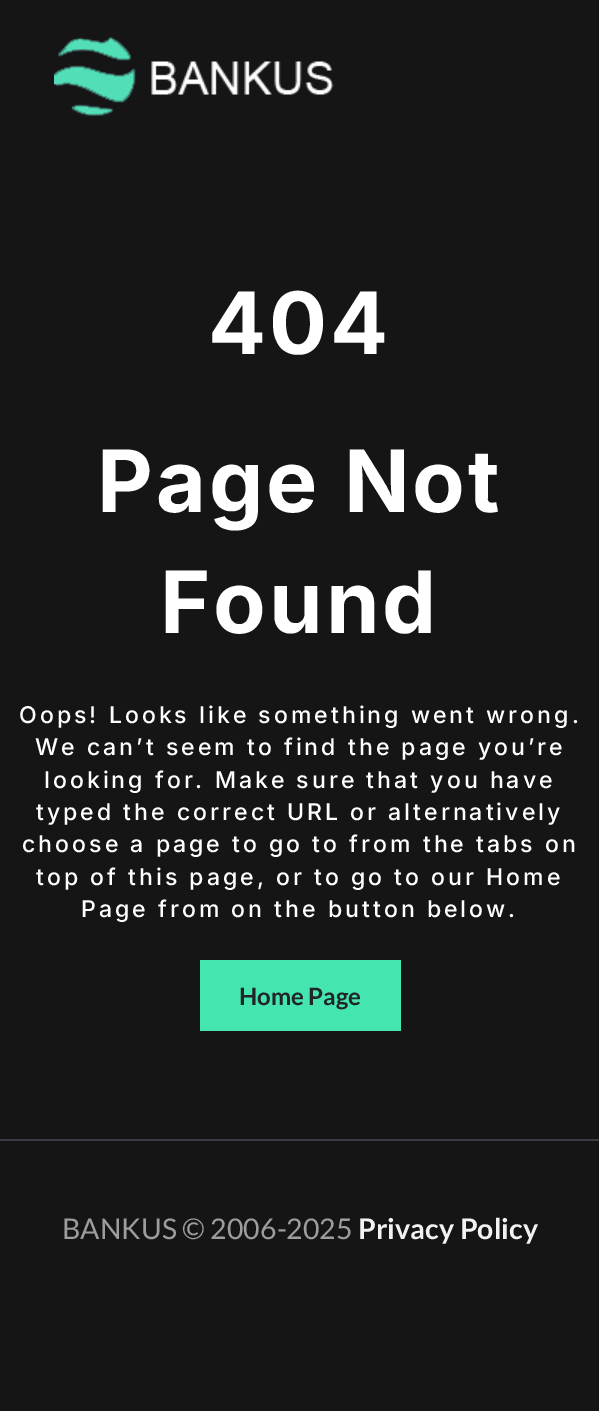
%!PS-Adobe-3.0
%%BoundingBox: 0 0 599 1411
%%LanguageLevel: 3
%%Pages: 1
%%EndComments
%%BeginProlog
/setink { 3 { 255 div 3 1 roll } repeat setrgbcolor } def
/usefont { [ exch dup neg 0 0 3 -1 roll 0 0 ] selectfont } def
/drawtext { setink usefont moveto show } def
/fillbox { setink rectfill } def
/drawimage { 5 dict begin { /h /w /y /x /name } { exch def } forall
  gsave x y translate w h scale
  w h 8 [w 0 0 h 0 0] name (r) file false 3 colorimage grestore end } def
%%EndProlog
%%BeginSetup
<< /PageSize [599 1411] >> setpagedevice
%%EndSetup
%%Page: 1 1
0 1411 translate 1 -1 scale
4 setmiterlimit
0 0 599 1411 21 21 21 fillbox
(assets/img1.rgb) 54 37 280 79 drawimage
/Inter-Bold 86 usefont
255 255 255 setink
208 354 moveto 3 0 (404) ashow
97 512 moveto 3 0 (Page Not) ashow
160 633 moveto 3 0 (Found) ashow
/Inter-Medium 23.1 usefont
19 723 moveto 3 0 (Oops! Looks like something went wrong.) ashow
35 755 moveto 3 0 (We can’t seem to find the page you’re) ashow
44 788 moveto 3 0 (looking for. Make sure that you have) ashow
36 820 moveto 3 0 (typed the correct URL or alternatively) ashow
22 852 moveto 3 0 (choose a page to go to from the tabs on) ashow
36 885 moveto 3 0 (top of this page, or to go to our Home) ashow
81 917 moveto 3 0 (Page from on the button below.) ashow
200 960 201 71 68 229 174 fillbox
(Home Page) 239 1005 /Lato-Bold 24 33 37 41 drawtext
0 1139 599 2 59 59 65 fillbox
(BANKUS © 2006-2025) 62 1239 /Lato-Regular 28.5 157 157 157 drawtext
(Privacy Policy) 358 1239 /Lato-Bold 28.5 242 242 242 drawtext
showpage
%%EOF
